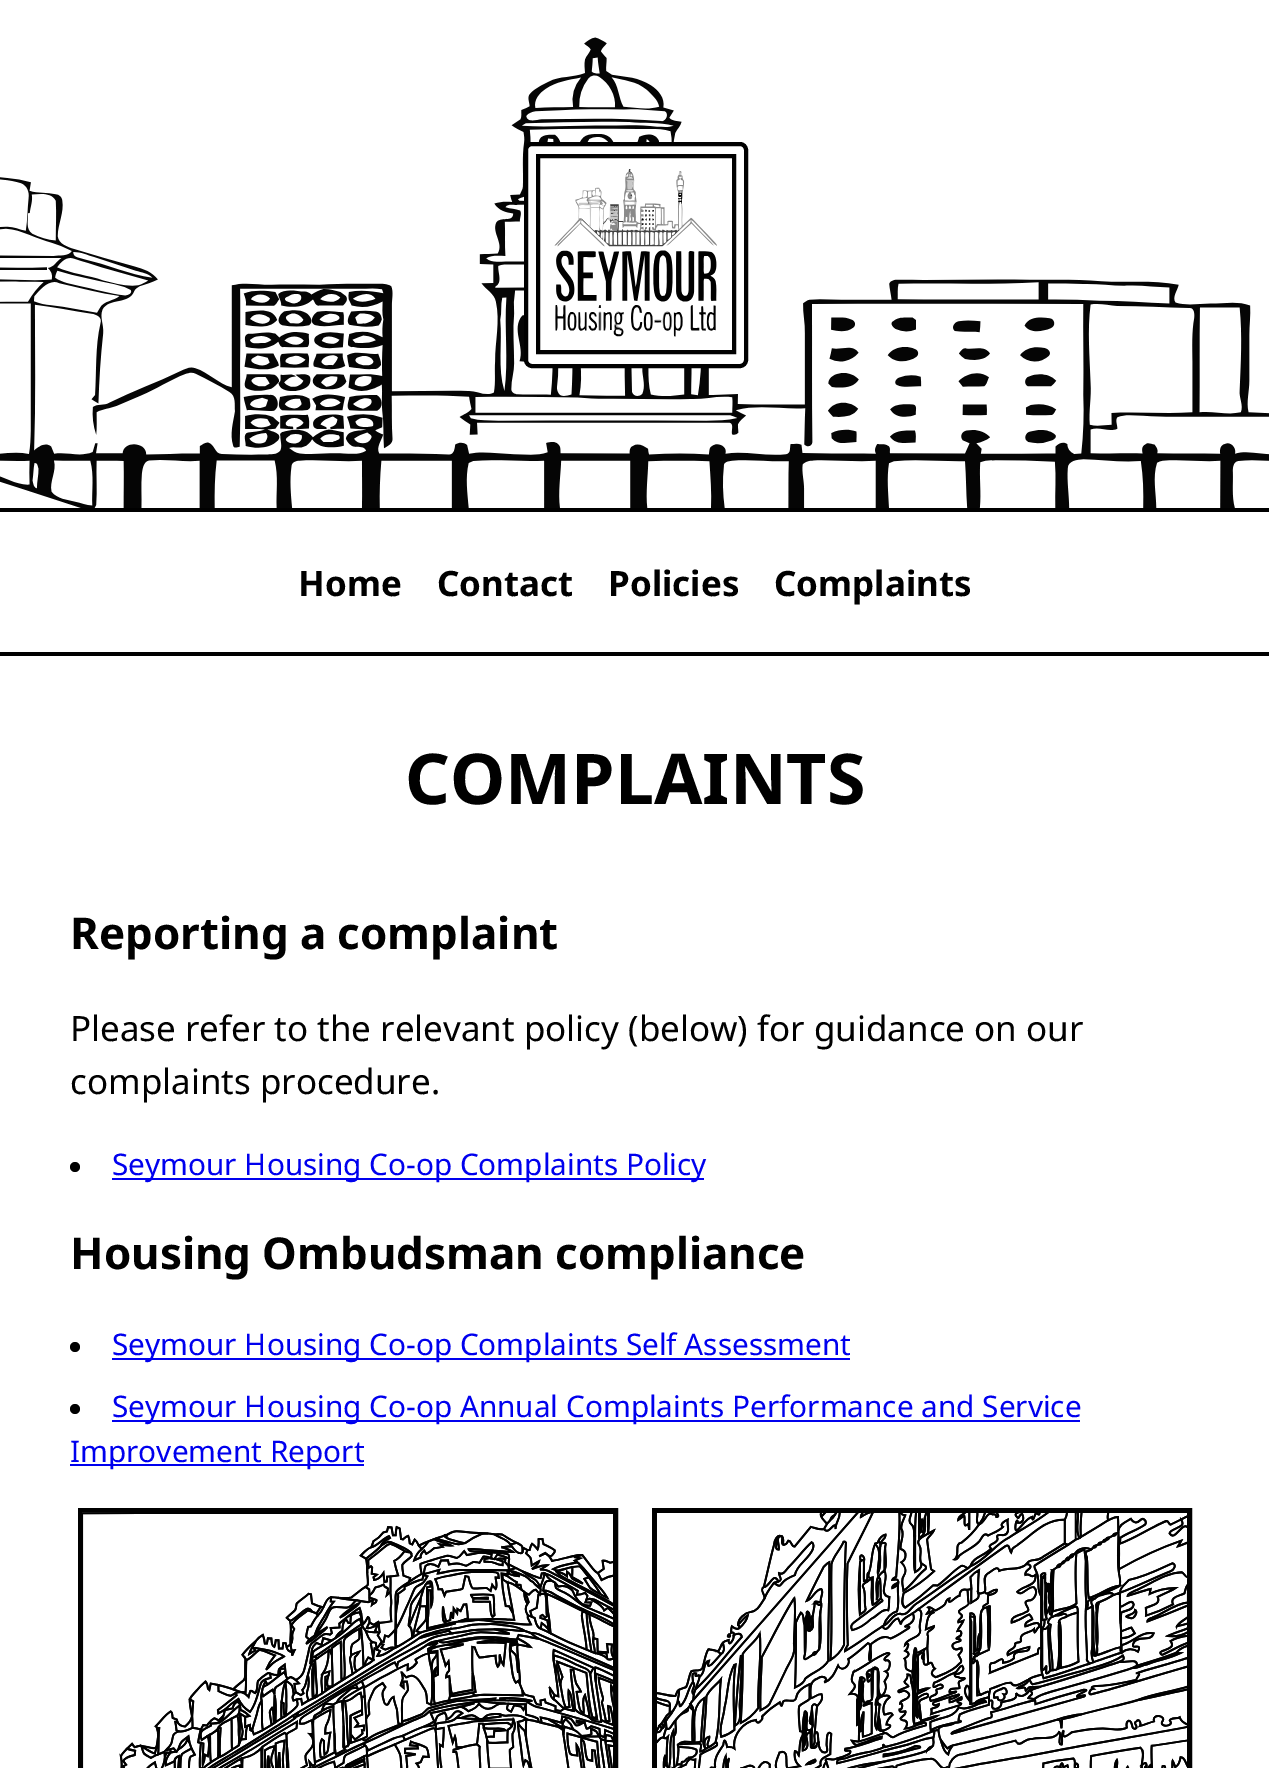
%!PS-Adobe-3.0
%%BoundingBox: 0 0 1269 1768
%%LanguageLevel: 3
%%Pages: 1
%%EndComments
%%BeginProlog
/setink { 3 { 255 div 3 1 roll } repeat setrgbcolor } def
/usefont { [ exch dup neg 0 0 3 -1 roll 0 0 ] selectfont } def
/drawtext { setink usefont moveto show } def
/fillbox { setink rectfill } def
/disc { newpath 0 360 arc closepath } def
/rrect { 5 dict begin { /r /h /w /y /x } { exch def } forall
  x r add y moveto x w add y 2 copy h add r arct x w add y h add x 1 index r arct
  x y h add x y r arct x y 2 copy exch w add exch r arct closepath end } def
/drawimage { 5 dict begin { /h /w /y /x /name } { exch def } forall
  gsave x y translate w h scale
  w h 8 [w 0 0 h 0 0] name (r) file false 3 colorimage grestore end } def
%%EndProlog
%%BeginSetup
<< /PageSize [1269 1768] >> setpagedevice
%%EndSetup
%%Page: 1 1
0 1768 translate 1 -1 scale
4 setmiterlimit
0 0 1269 1768 255 255 255 fillbox
(assets/img1.rgb) 0 37 1269 471 drawimage
0 508 1269 4 0 0 0 fillbox
255 255 255 setink
526 144 220 222 6 rrect gsave fill grestore
0 0 0 setink
4 setlinewidth
stroke
538 156 196 196 rectstroke
(assets/img2.rgb) 554 169 163 168 drawimage
0 652 1269 4 0 0 0 fillbox
(Home) 298 596 /NotoSans-Bold 34.95 0 0 0 drawtext
(Contact) 437 596 /NotoSans-Bold 34.95 0 0 0 drawtext
(Policies) 608 596 /NotoSans-Bold 34.95 0 0 0 drawtext
(Complaints) 774 596 /NotoSans-Bold 34.95 0 0 0 drawtext
(COMPLAINTS) 405 804 /NotoSans-Bold 70 0 0 0 drawtext
(Reporting a complaint) 70 949 /NotoSans-Bold 43.9 0 0 0 drawtext
(Please refer to the relevant policy \(below\) for guidance on our) 70 1041 /NotoSans-Regular 34.95 0 0 0 drawtext
(complaints procedure.) 70 1094 /NotoSans-Regular 34.95 0 0 0 drawtext
75 1167 5 disc fill
112 1178 592 2 0 0 238 fillbox
(Seymour Housing Co-op Complaints Policy) 112 1175 /NotoSans-Regular 29.75 0 0 238 drawtext
(Housing Ombudsman compliance) 70 1269 /NotoSans-Bold 43.9 0 0 0 drawtext
75 1347 5 disc fill
112 1358 738 2 0 0 238 fillbox
(Seymour Housing Co-op Complaints Self Assessment) 112 1355 /NotoSans-Regular 29.75 0 0 238 drawtext
0 0 0 setink
75 1409 5 disc fill
112 1420 968 2 0 0 238 fillbox
(Seymour Housing Co-op Annual Complaints Performance and Service) 112 1417 /NotoSans-Regular 29.75 0 0 238 drawtext
70 1464 294 2 0 0 238 fillbox
(Improvement Report) 70 1462 /NotoSans-Regular 29.75 0 0 238 drawtext
0 0 0 setink
80 1510 536 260 rectstroke
(assets/img3.rgb) 82 1512 532 256 drawimage
654 1510 536 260 rectstroke
(assets/img4.rgb) 656 1512 532 256 drawimage
showpage
%%EOF
